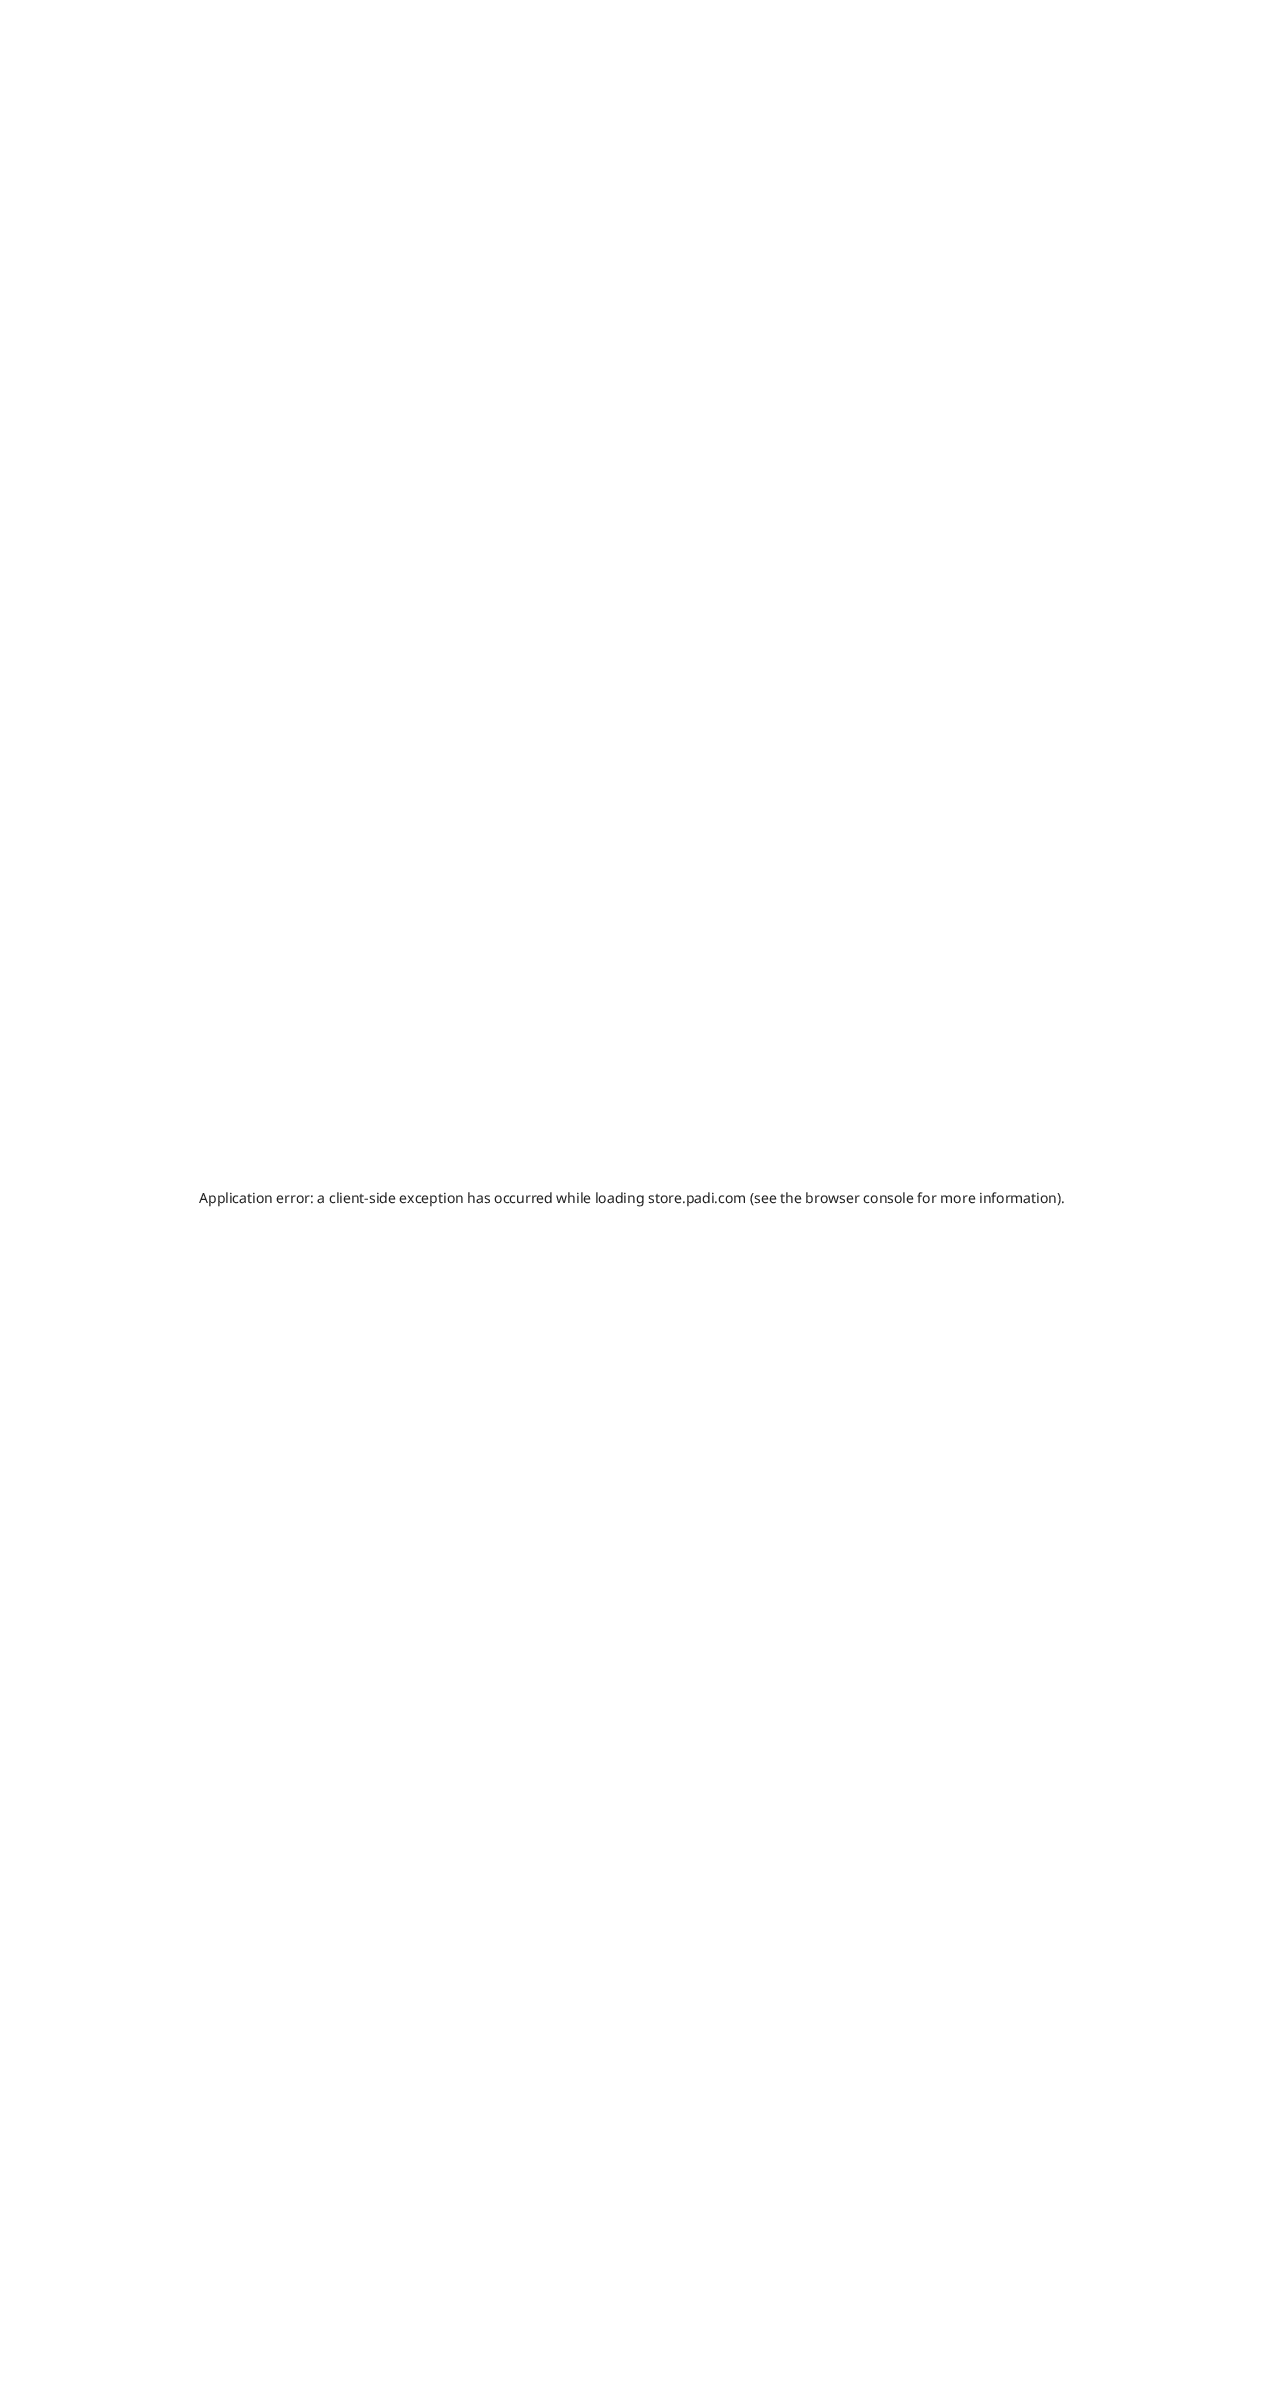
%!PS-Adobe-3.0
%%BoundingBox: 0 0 1265 2396
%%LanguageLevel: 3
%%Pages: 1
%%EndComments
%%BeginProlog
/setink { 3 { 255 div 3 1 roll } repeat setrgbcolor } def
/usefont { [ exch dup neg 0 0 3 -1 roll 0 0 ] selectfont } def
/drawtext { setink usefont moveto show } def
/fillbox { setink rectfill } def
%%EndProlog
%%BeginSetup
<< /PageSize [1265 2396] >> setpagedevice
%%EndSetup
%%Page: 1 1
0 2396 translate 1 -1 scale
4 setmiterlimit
0 0 1265 2396 255 255 255 fillbox
(Application error: a client-side exception has occurred while loading store.padi.com \(see the browser console for more information\).) 199 1203 /NotoSans-Regular 14 33 33 33 drawtext
showpage
%%EOF
